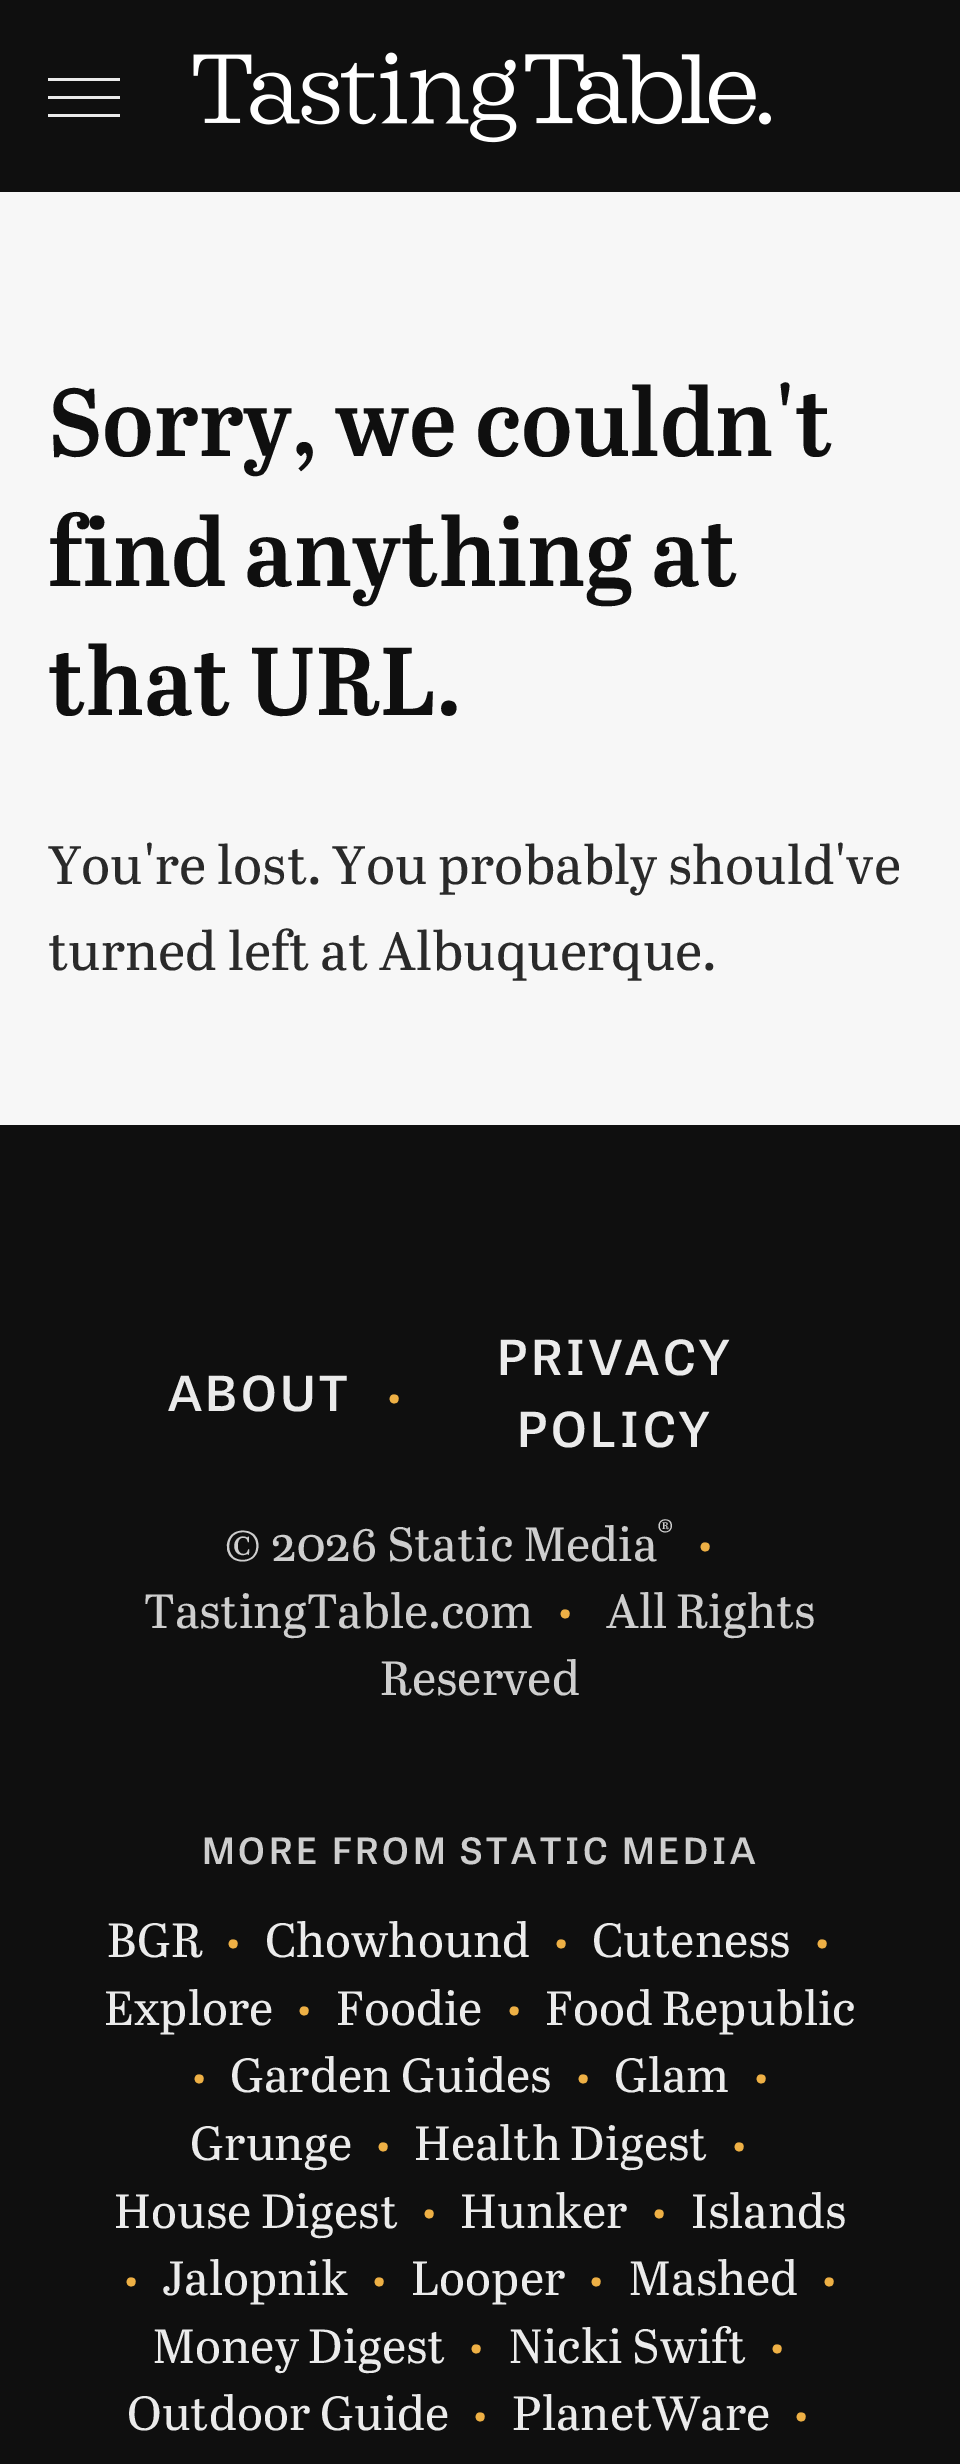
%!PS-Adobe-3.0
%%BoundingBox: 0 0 960 2464
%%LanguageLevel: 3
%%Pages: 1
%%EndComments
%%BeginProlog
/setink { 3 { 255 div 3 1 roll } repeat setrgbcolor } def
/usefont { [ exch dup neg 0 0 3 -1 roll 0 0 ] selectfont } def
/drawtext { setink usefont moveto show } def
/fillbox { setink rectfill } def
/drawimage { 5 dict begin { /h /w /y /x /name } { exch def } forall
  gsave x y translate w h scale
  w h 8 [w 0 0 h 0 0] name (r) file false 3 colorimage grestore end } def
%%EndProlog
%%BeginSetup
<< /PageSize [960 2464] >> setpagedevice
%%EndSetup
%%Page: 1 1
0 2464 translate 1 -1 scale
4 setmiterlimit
0 0 960 2464 247 247 247 fillbox
0 0 960 192 15 15 15 fillbox
48 78 72 3 235 235 235 fillbox
48 96 72 3 235 235 235 fillbox
48 114 72 3 235 235 235 fillbox
(assets/img1.rgb) 193 52 578 91 drawimage
(Sorry, we couldn't) 48 456 /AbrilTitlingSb-SemiBold 96 15 15 15 drawtext
(find anything at) 48 586 /AbrilTitlingSb-SemiBold 96 15 15 15 drawtext
(that URL.) 48 715 /AbrilTitlingSb-SemiBold 96 15 15 15 drawtext
(You're lost. You probably should've) 48 884 /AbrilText-Regular 54 42 42 42 drawtext
(turned left at Albuquerque.) 48 970 /AbrilText-Regular 54 42 42 42 drawtext
0 1125 960 1339 15 15 15 fillbox
/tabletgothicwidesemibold-SemiBold 48 usefont
235 235 235 setink
168 1411 moveto 3.6 0 (ABOUT) ashow
(•) 387 1411 /AbrilText-Regular 42 238 176 69 drawtext
/tabletgothicwidesemibold-SemiBold 48 usefont
235 235 235 setink
497 1375 moveto 3.6 0 (PRIVACY) ashow
517 1447 moveto 3.6 0 (POLICY) ashow
(© 2026 Static Media) 224 1561 /AbrilText-Regular 48 206 206 206 drawtext
(®) 657 1543 /AbrilText-Regular 36 206 206 206 drawtext
(•) 698 1559 /AbrilText-Regular 42 238 176 69 drawtext
(TastingTable.com) 144 1628 /AbrilText-Regular 48 206 206 206 drawtext
(•) 558 1626 /AbrilText-Regular 42 238 176 69 drawtext
(All Rights) 606 1628 /AbrilText-Regular 48 206 206 206 drawtext
(Reserved) 380 1695 /AbrilText-Regular 48 206 206 206 drawtext
/tabletgothicwidesemibold-SemiBold 36 usefont
202 1864 moveto 3.6 0 (MORE FROM STATIC MEDIA) ashow
(BGR) 107 1957 /AbrilText-Regular 48 235 235 235 drawtext
(•) 226 1956 /AbrilText-Regular 42 238 176 69 drawtext
(Chowhound) 265 1957 /AbrilText-Regular 48 235 235 235 drawtext
(•) 554 1956 /AbrilText-Regular 42 238 176 69 drawtext
(Cuteness) 592 1957 /AbrilText-Regular 48 235 235 235 drawtext
(•) 815 1956 /AbrilText-Regular 42 238 176 69 drawtext
(Explore) 104 2025 /AbrilText-Regular 48 235 235 235 drawtext
(•) 297 2023 /AbrilText-Regular 42 238 176 69 drawtext
(Foodie) 336 2025 /AbrilText-Regular 48 235 235 235 drawtext
(•) 507 2023 /AbrilText-Regular 42 238 176 69 drawtext
(Food Republic) 545 2025 /AbrilText-Regular 48 235 235 235 drawtext
(•) 192 2091 /AbrilText-Regular 42 238 176 69 drawtext
(Garden Guides) 230 2092 /AbrilText-Regular 48 235 235 235 drawtext
(•) 576 2091 /AbrilText-Regular 42 238 176 69 drawtext
(Glam) 614 2092 /AbrilText-Regular 48 235 235 235 drawtext
(•) 754 2091 /AbrilText-Regular 42 238 176 69 drawtext
(Grunge) 190 2160 /AbrilText-Regular 48 235 235 235 drawtext
(•) 376 2159 /AbrilText-Regular 42 238 176 69 drawtext
(Health Digest) 414 2160 /AbrilText-Regular 48 235 235 235 drawtext
(•) 732 2159 /AbrilText-Regular 42 238 176 69 drawtext
(House Digest) 114 2228 /AbrilText-Regular 48 235 235 235 drawtext
(•) 422 2226 /AbrilText-Regular 42 238 176 69 drawtext
(Hunker) 460 2228 /AbrilText-Regular 48 235 235 235 drawtext
(•) 652 2226 /AbrilText-Regular 42 238 176 69 drawtext
(Islands) 691 2228 /AbrilText-Regular 48 235 235 235 drawtext
(•) 124 2294 /AbrilText-Regular 42 238 176 69 drawtext
(Jalopnik) 162 2295 /AbrilText-Regular 48 235 235 235 drawtext
(•) 372 2294 /AbrilText-Regular 42 238 176 69 drawtext
(Looper) 411 2295 /AbrilText-Regular 48 235 235 235 drawtext
(•) 589 2294 /AbrilText-Regular 42 238 176 69 drawtext
(Mashed) 628 2295 /AbrilText-Regular 48 235 235 235 drawtext
(•) 822 2294 /AbrilText-Regular 42 238 176 69 drawtext
(Money Digest) 152 2363 /AbrilText-Regular 48 235 235 235 drawtext
(•) 469 2361 /AbrilText-Regular 42 238 176 69 drawtext
(Nicki Swift) 508 2363 /AbrilText-Regular 48 235 235 235 drawtext
(•) 770 2361 /AbrilText-Regular 42 238 176 69 drawtext
(Outdoor Guide) 127 2430 /AbrilText-Regular 48 235 235 235 drawtext
(•) 473 2429 /AbrilText-Regular 42 238 176 69 drawtext
(PlanetWare) 512 2430 /AbrilText-Regular 48 235 235 235 drawtext
(•) 794 2429 /AbrilText-Regular 42 238 176 69 drawtext
showpage
%%EOF
